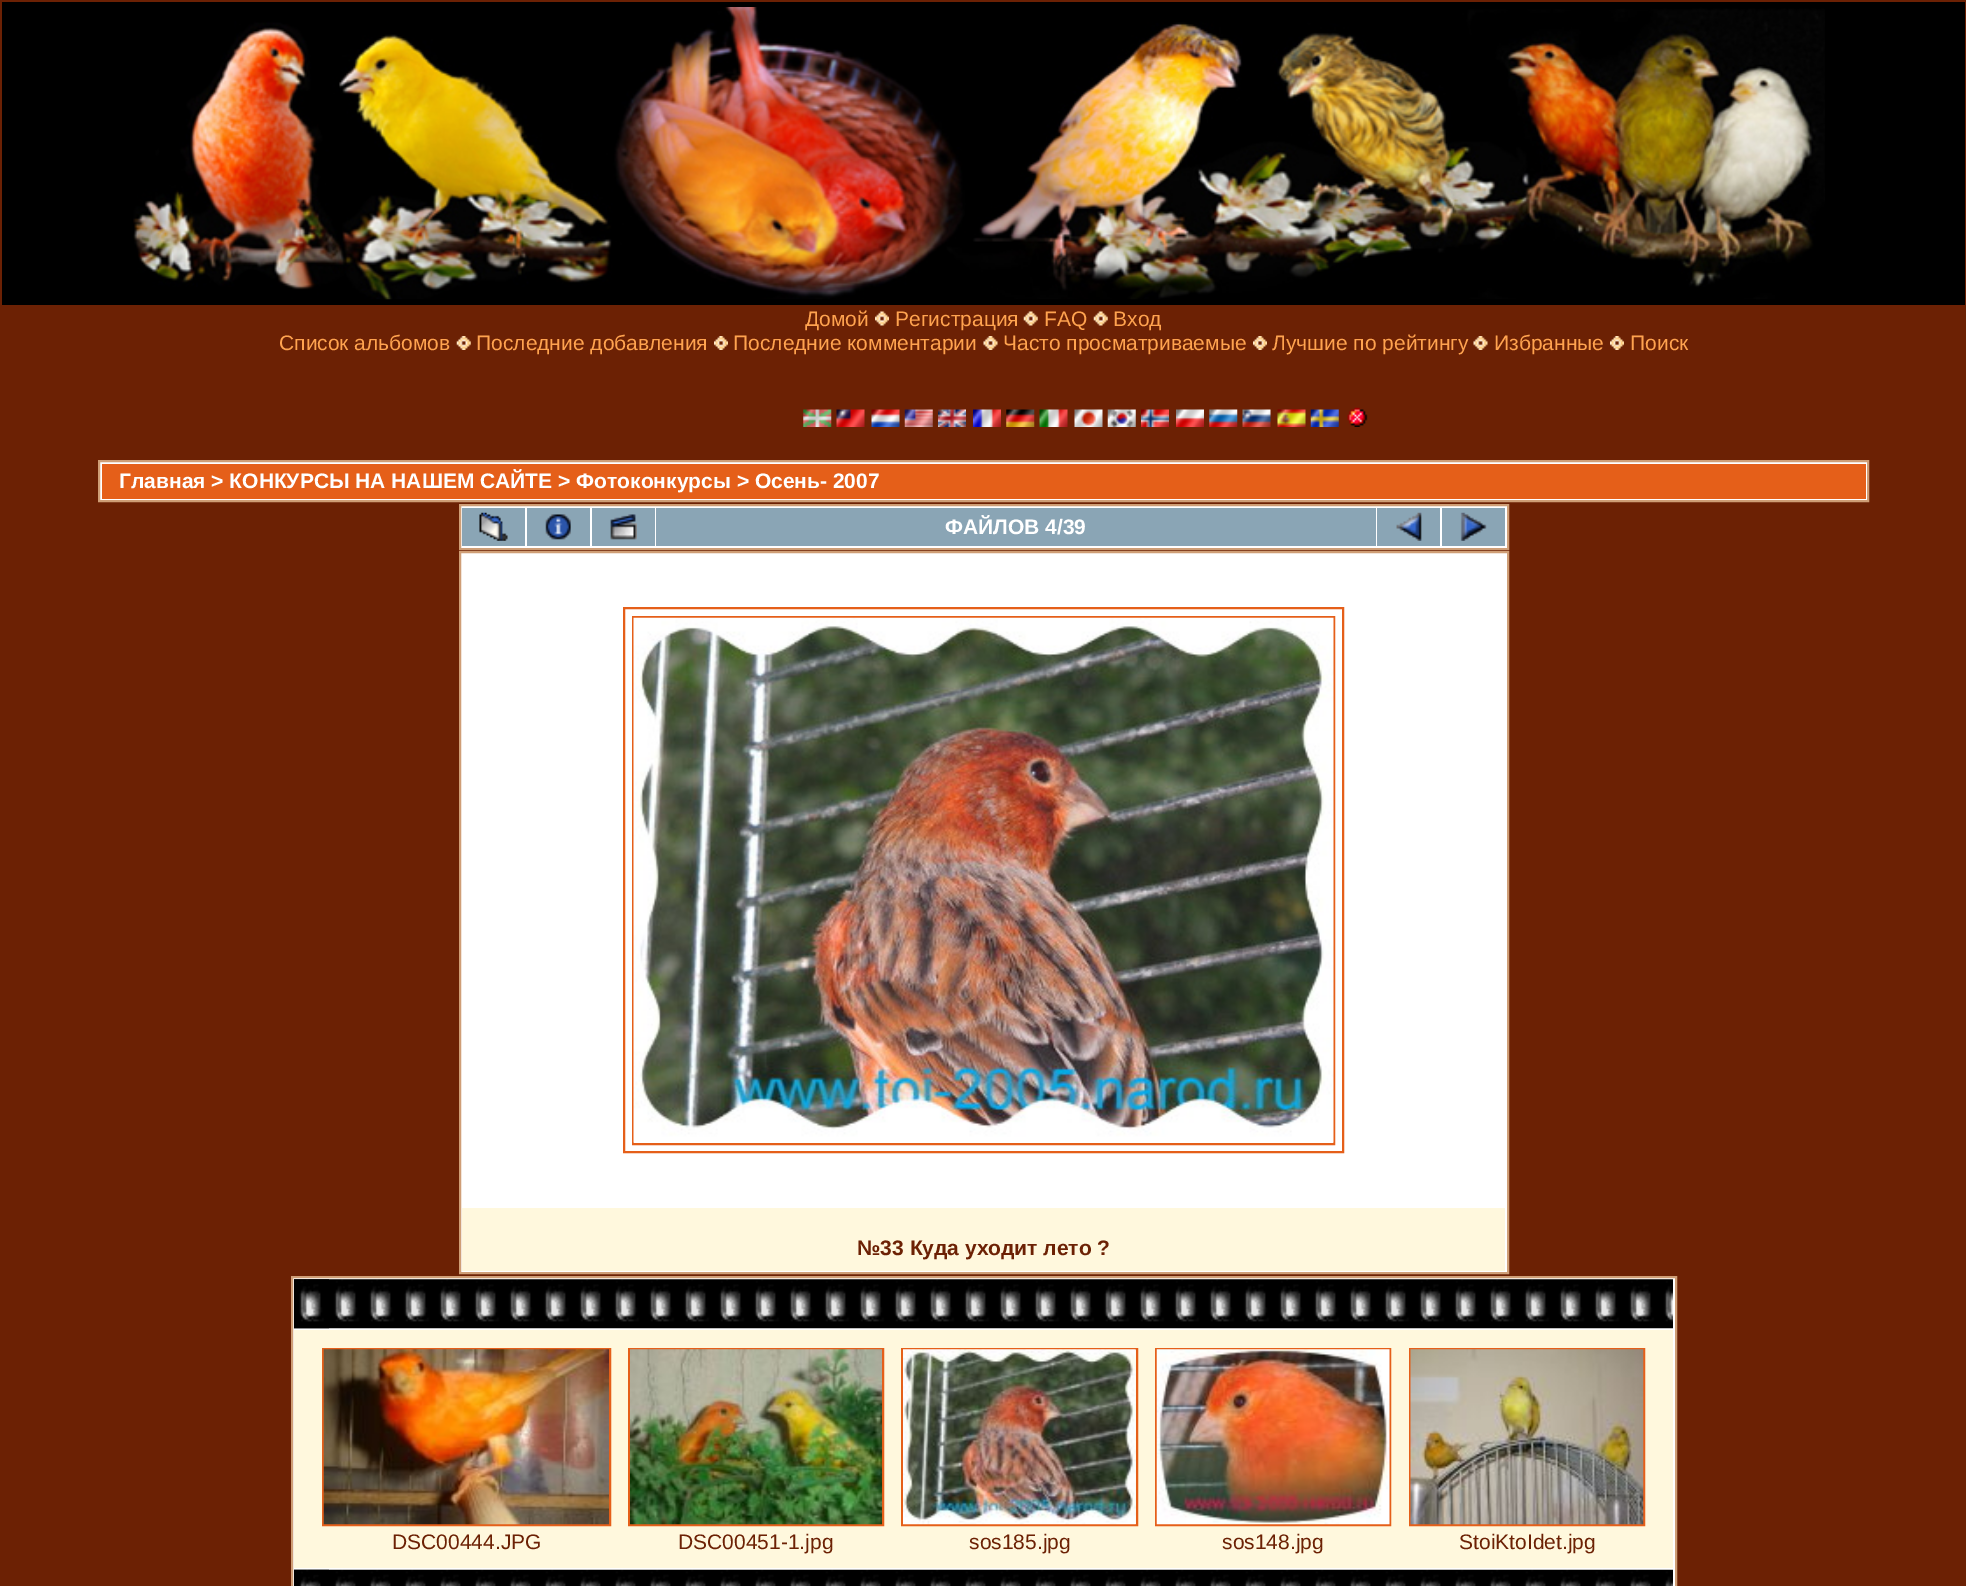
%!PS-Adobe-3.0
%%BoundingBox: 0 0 1966 1586
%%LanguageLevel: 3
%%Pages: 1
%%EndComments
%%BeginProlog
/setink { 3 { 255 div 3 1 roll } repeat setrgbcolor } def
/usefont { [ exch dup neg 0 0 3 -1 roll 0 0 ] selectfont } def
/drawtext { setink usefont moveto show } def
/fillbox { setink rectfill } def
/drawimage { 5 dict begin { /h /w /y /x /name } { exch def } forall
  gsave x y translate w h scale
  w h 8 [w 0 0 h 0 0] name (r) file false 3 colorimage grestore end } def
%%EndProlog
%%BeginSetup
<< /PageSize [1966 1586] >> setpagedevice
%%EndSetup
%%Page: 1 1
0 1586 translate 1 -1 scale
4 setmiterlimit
0 0 1966 1586 108 33 4 fillbox
2 2 1963 303 0 0 0 fillbox
(assets/img1.rgb) 133 7 1692 293 drawimage
(Домой) 805 326 /LiberationSans-Regular 21 255 163 79 drawtext
(assets/img2.rgb) 875 311 14 15 drawimage
(Регистрация) 895 326 /LiberationSans-Regular 21 255 163 79 drawtext
(assets/img3.rgb) 1023 311 15 15 drawimage
(FAQ) 1044 326 /LiberationSans-Regular 21 255 163 79 drawtext
(assets/img4.rgb) 1093 311 15 15 drawimage
(Вход) 1113 326 /LiberationSans-Regular 21 255 163 79 drawtext
(Список альбомов) 279 350 /LiberationSans-Regular 21 255 163 79 drawtext
(assets/img5.rgb) 456 336 15 14 drawimage
(Последние добавления) 476 350 /LiberationSans-Regular 21 255 163 79 drawtext
(assets/img6.rgb) 714 336 14 14 drawimage
(Последние комментарии) 733 350 /LiberationSans-Regular 21 255 163 79 drawtext
(assets/img7.rgb) 983 336 15 14 drawimage
(Часто просматриваемые) 1003 350 /LiberationSans-Regular 21 255 163 79 drawtext
(assets/img8.rgb) 1253 336 14 14 drawimage
(Лучшие по рейтингу) 1272 350 /LiberationSans-Regular 21 255 163 79 drawtext
(assets/img7.rgb) 1473 336 15 14 drawimage
(Избранные) 1494 350 /LiberationSans-Regular 21 255 163 79 drawtext
(assets/img6.rgb) 1610 336 14 14 drawimage
(Поиск) 1630 350 /LiberationSans-Regular 21 255 163 79 drawtext
(assets/img9.rgb) 803 409 29 18 drawimage
(assets/img10.rgb) 836 409 29 18 drawimage
(assets/img11.rgb) 871 409 29 18 drawimage
(assets/img12.rgb) 904 409 29 18 drawimage
(assets/img13.rgb) 938 409 28 18 drawimage
(assets/img14.rgb) 973 409 28 18 drawimage
(assets/img15.rgb) 1006 409 29 18 drawimage
(assets/img16.rgb) 1039 409 29 18 drawimage
(assets/img17.rgb) 1074 409 29 18 drawimage
(assets/img18.rgb) 1107 409 29 18 drawimage
(assets/img19.rgb) 1141 409 28 18 drawimage
(assets/img20.rgb) 1176 409 28 18 drawimage
(assets/img21.rgb) 1209 409 29 18 drawimage
(assets/img22.rgb) 1242 409 29 18 drawimage
(assets/img23.rgb) 1277 409 29 18 drawimage
(assets/img24.rgb) 1310 409 29 18 drawimage
(assets/img25.rgb) 1347 407 21 20 drawimage
255 255 255 setink
99 461 moveto 1868 461 lineto 1868 501 lineto 99 501 lineto closepath gsave fill grestore
207 158 118 setink
2 setlinewidth
stroke
102 464 1764 35 229 95 25 fillbox
(Главная > КОНКУРСЫ НА НАШЕМ САЙТЕ > Фотоконкурсы > Осень- 2007) 119 488 /LiberationSans-Bold 21 255 255 255 drawtext
460 505 moveto 1508 505 lineto 1508 549 lineto 460 549 lineto closepath gsave fill grestore
207 158 118 setink
stroke
462 508 63 38 138 165 181 fillbox
(assets/img26.rgb) 479 512 29 29 drawimage
527 508 63 38 138 165 181 fillbox
(assets/img27.rgb) 545 514 26 26 drawimage
592 508 63 38 138 165 181 fillbox
(assets/img28.rgb) 610 514 27 26 drawimage
656 508 720 38 138 165 181 fillbox
(ФАЙЛОВ 4/39) 945 534 /LiberationSans-Bold 21 255 255 255 drawtext
1377 508 63 38 138 165 181 fillbox
(assets/img29.rgb) 1396 512 26 29 drawimage
1442 508 63 38 138 165 181 fillbox
(assets/img30.rgb) 1460 512 27 29 drawimage
255 255 255 setink
460 552 moveto 1508 552 lineto 1508 1273 lineto 460 1273 lineto closepath gsave fill grestore
207 158 118 setink
stroke
229 95 25 setink
624 608 719 544 rectstroke
633 617 701 527 rectstroke
(assets/img31.rgb) 633 617 701 526 drawimage
462 1208 1043 63 255 248 221 fillbox
(№33 Куда уходит лето ?) 857 1255 /LiberationSans-Bold 21 108 33 4 drawtext
255 255 255 setink
292 1277 moveto 1676 1277 lineto 1676 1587 lineto 292 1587 lineto closepath gsave fill grestore
207 158 118 setink
stroke
(assets/img32.rgb) 294 1279 1379 50 drawimage
(assets/img33.rgb) 294 1279 35 50 drawimage
294 1330 1379 238 255 248 221 fillbox
229 95 25 setink
323 1349 287 176 rectstroke
(assets/img34.rgb) 323 1349 286 176 drawimage
(DSC00444.JPG) 392 1549 /LiberationSans-Regular 21 108 33 4 drawtext
229 95 25 setink
629 1349 254 176 rectstroke
(assets/img35.rgb) 630 1349 252 176 drawimage
(DSC00451-1.jpg) 678 1549 /LiberationSans-Regular 21 108 33 4 drawtext
229 95 25 setink
902 1349 235 176 rectstroke
(assets/img36.rgb) 903 1349 233 176 drawimage
(sos185.jpg) 969 1549 /LiberationSans-Regular 21 108 33 4 drawtext
229 95 25 setink
1156 1349 234 176 rectstroke
(assets/img37.rgb) 1156 1349 234 176 drawimage
(sos148.jpg) 1222 1549 /LiberationSans-Regular 21 108 33 4 drawtext
229 95 25 setink
1410 1349 234 176 rectstroke
(assets/img38.rgb) 1410 1349 234 176 drawimage
(StoiKtoIdet.jpg) 1459 1549 /LiberationSans-Regular 21 108 33 4 drawtext
(assets/img39.rgb) 294 1569 1379 17 drawimage
(assets/img40.rgb) 294 1569 35 16 drawimage
showpage
%%EOF
